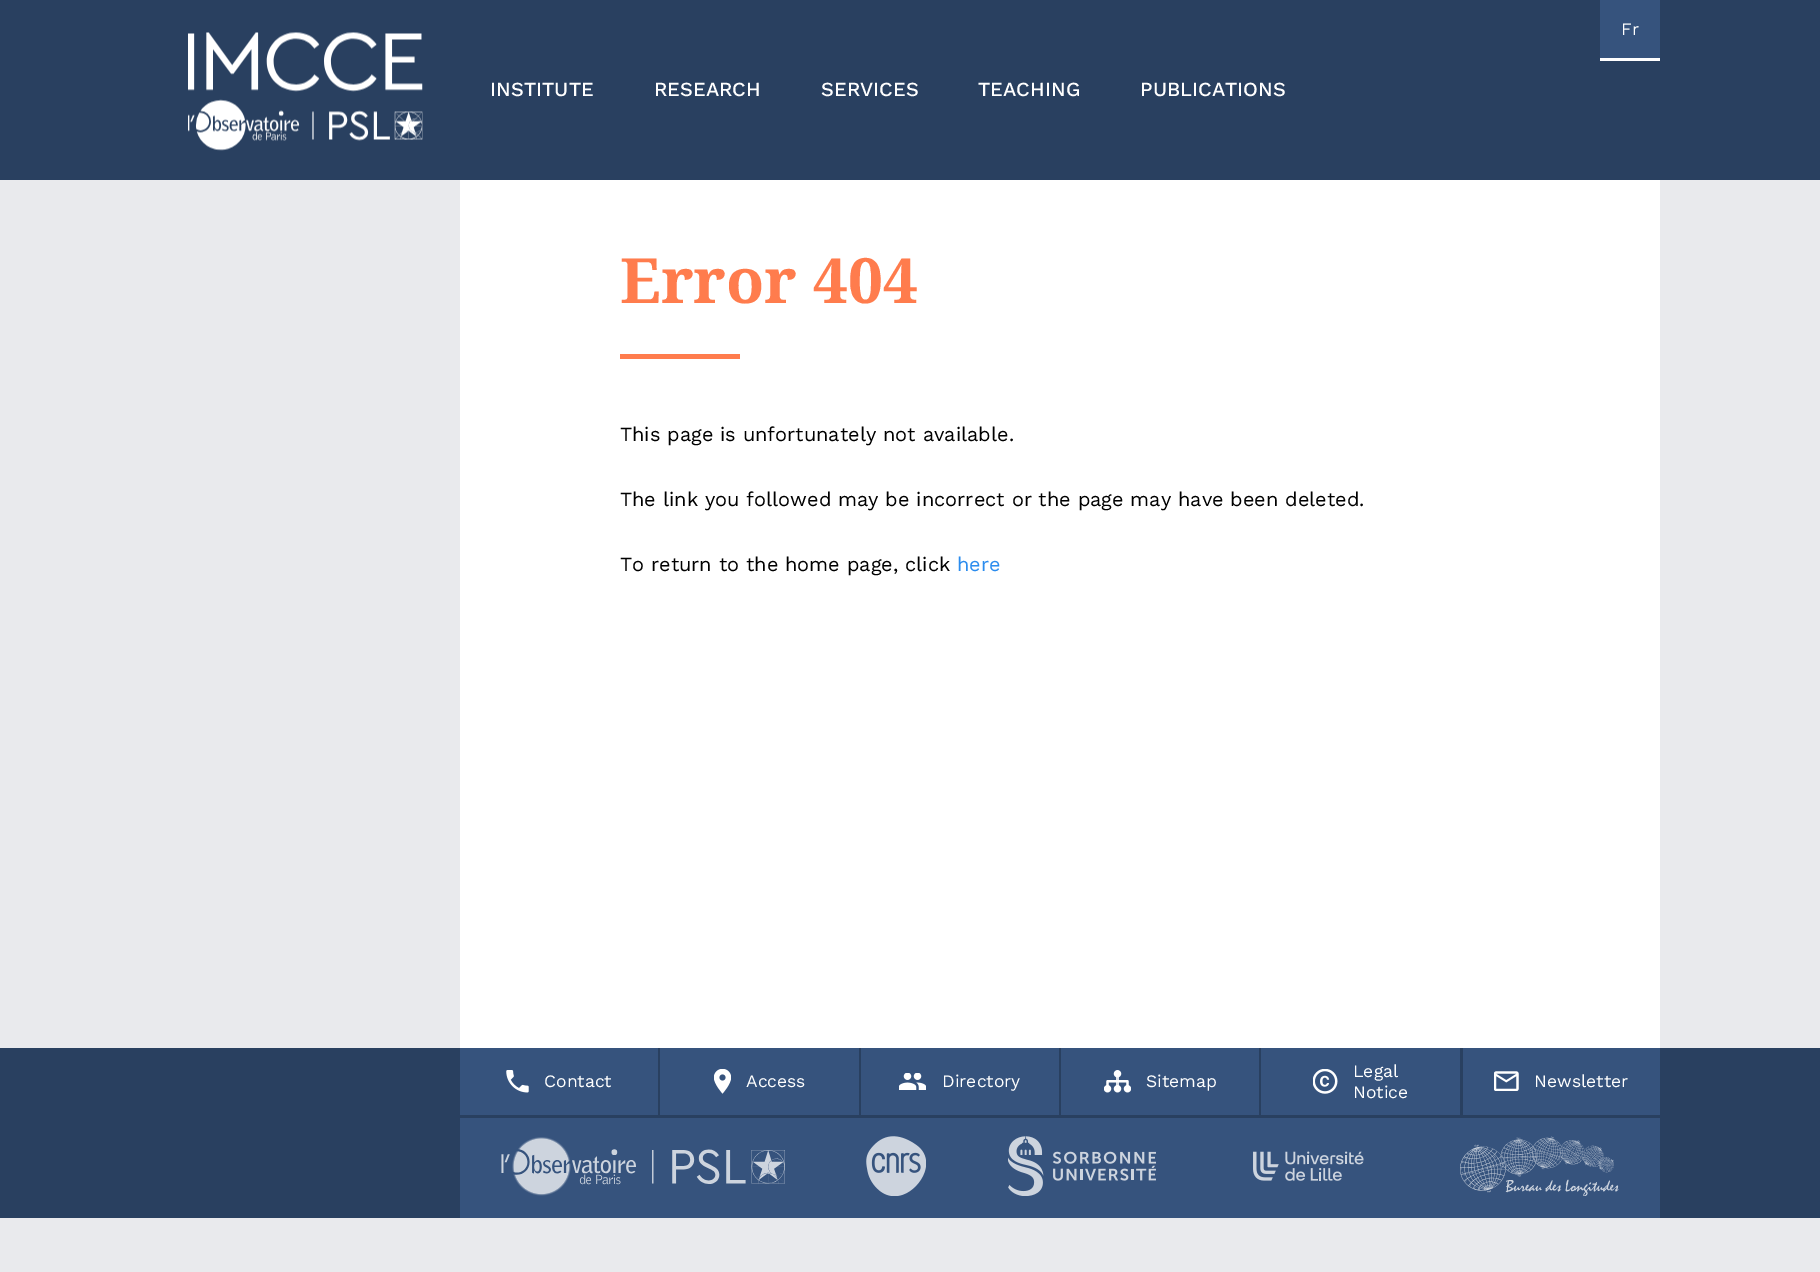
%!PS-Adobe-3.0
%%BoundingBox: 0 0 1820 1272
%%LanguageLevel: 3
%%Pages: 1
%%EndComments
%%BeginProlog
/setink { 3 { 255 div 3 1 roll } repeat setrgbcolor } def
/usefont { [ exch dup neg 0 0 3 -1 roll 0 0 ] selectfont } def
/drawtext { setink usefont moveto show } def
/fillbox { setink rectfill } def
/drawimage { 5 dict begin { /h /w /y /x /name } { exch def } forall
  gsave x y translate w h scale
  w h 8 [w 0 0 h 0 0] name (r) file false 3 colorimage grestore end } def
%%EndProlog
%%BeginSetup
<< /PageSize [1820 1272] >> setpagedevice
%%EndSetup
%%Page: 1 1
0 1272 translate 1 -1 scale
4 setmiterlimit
0 0 1820 1272 233 234 237 fillbox
0 0 1820 180 41 64 96 fillbox
1600 0 60 58 54 83 125 fillbox
1600 58 60 3 255 255 255 fillbox
(Fr) 1621 35 /WorkSans-Regular 17.5 255 255 255 drawtext
(assets/img1.rgb) 188 32 235 119 drawimage
(INSTITUTE) 490 96 /WorkSans-Medium 20 255 255 255 drawtext
(RESEARCH) 654 96 /WorkSans-Medium 20 255 255 255 drawtext
(SERVICES) 821 96 /WorkSans-Medium 20 255 255 255 drawtext
(TEACHING) 978 96 /WorkSans-Medium 20 255 255 255 drawtext
(PUBLICATIONS) 1140 96 /WorkSans-Medium 20 255 255 255 drawtext
460 180 1200 868 255 255 255 fillbox
(Error 404) 620 303 /NotoSerif-Bold 62.5 255 124 77 drawtext
620 354 120 5 255 124 77 fillbox
(This page is unfortunately not available.) 620 441 /WorkSans-Regular 20 0 0 0 drawtext
(The link you followed may be incorrect or the page may have been deleted.) 620 506 /WorkSans-Regular 20 0 0 0 drawtext
(To return to the home page, click) 620 571 /WorkSans-Regular 20 0 0 0 drawtext
(here) 957 571 /WorkSans-Regular 20 43 140 238 drawtext
0 1048 1820 170 41 64 96 fillbox
460 1048 198 67 54 83 125 fillbox
(assets/img2.rgb) 506 1070 23 23 drawimage
(Contact) 544 1087 /WorkSans-Regular 17.5 255 255 255 drawtext
660 1048 199 67 54 83 125 fillbox
(assets/img3.rgb) 714 1069 17 25 drawimage
(Access) 746 1087 /WorkSans-Regular 17.5 255 255 255 drawtext
861 1048 198 67 54 83 125 fillbox
(assets/img4.rgb) 899 1073 27 17 drawimage
(Directory) 942 1087 /WorkSans-Regular 17.5 255 255 255 drawtext
1061 1048 198 67 54 83 125 fillbox
(assets/img5.rgb) 1104 1070 27 23 drawimage
(Sitemap) 1146 1087 /WorkSans-Regular 17.5 255 255 255 drawtext
1261 1048 199 67 54 83 125 fillbox
(assets/img6.rgb) 1313 1069 25 25 drawimage
(Legal) 1353 1077 /WorkSans-Regular 17.5 255 255 255 drawtext
(Notice) 1353 1098 /WorkSans-Regular 17.5 255 255 255 drawtext
1463 1048 197 67 54 83 125 fillbox
(assets/img7.rgb) 1494 1071 25 20 drawimage
(Newsletter) 1534 1087 /WorkSans-Regular 17.5 255 255 255 drawtext
460 1118 1200 100 54 83 125 fillbox
(assets/img8.rgb) 501 1137 284 59 drawimage
(assets/img9.rgb) 866 1136 60 60 drawimage
(assets/img10.rgb) 1008 1136 148 60 drawimage
(assets/img11.rgb) 1253 1151 111 30 drawimage
(assets/img12.rgb) 1460 1136 159 60 drawimage
showpage
%%EOF
